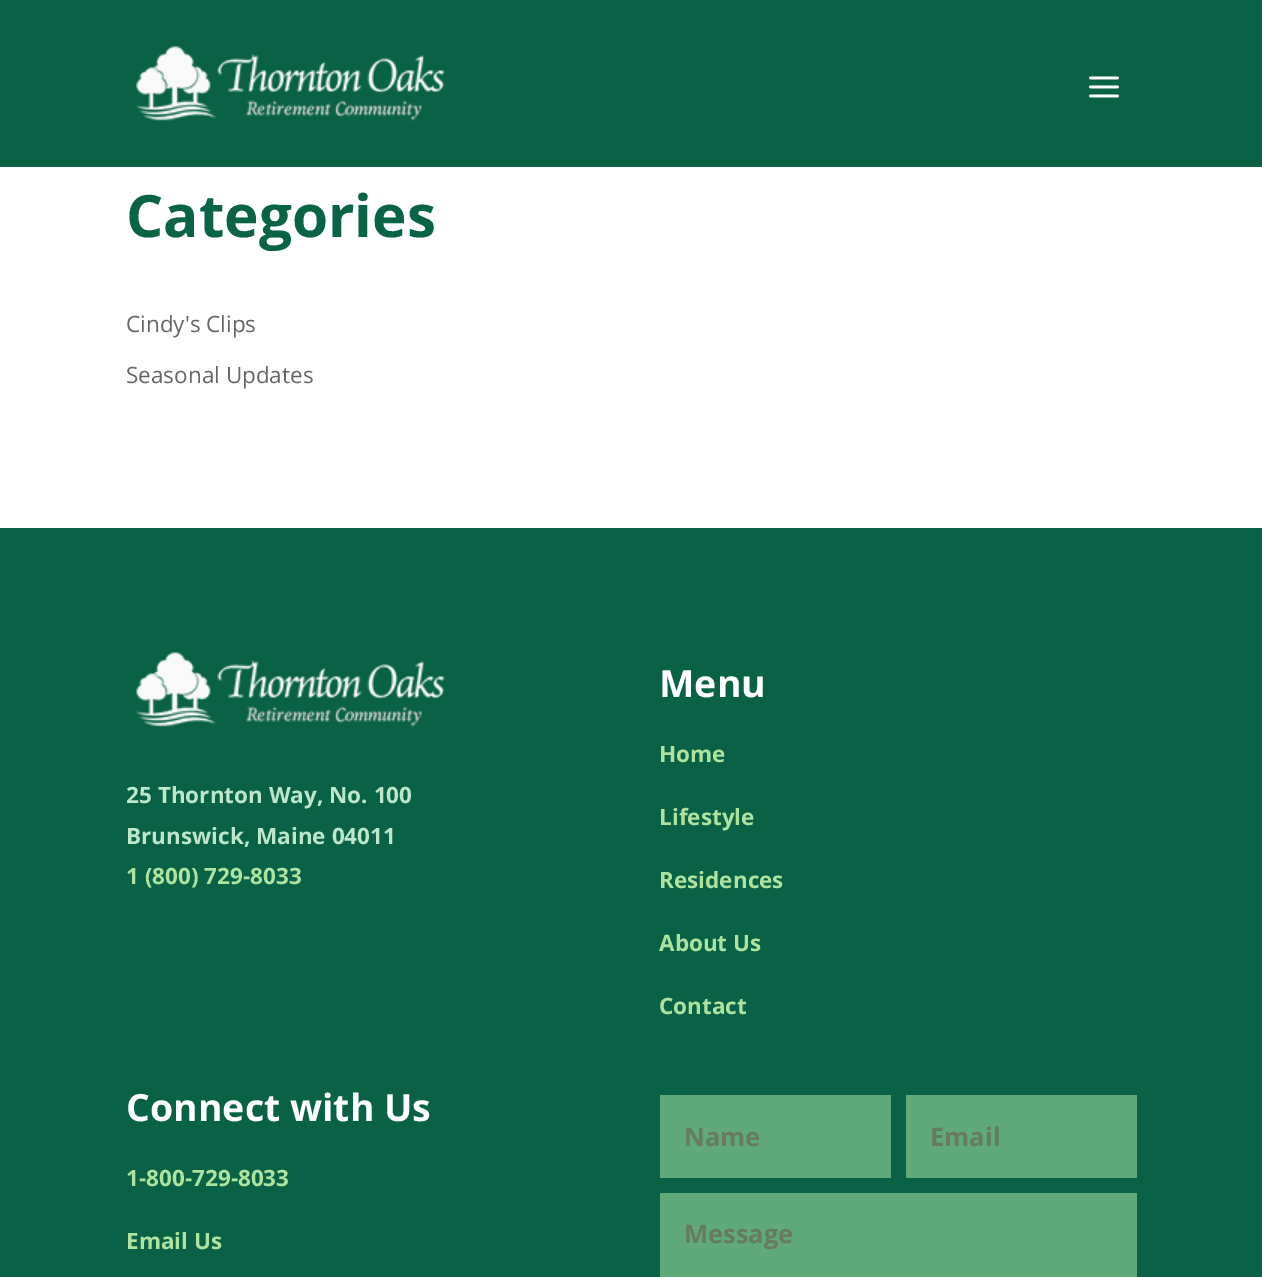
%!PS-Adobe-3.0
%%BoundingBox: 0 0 1262 1277
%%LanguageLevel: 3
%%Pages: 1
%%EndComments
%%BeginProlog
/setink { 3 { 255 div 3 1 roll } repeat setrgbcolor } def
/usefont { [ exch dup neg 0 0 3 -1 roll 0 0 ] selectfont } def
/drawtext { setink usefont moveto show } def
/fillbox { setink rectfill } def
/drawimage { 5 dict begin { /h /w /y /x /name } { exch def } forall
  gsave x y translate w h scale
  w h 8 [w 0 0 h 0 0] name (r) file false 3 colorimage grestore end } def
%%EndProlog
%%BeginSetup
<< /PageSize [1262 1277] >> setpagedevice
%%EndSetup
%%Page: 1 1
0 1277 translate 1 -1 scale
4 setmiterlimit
0 0 1262 1277 255 255 255 fillbox
0 0 1262 167 9 98 70 fillbox
(assets/img1.rgb) 136 46 309 75 drawimage
(assets/img2.rgb) 1089 76 30 22 drawimage
(Categories) 126 237 /OpenSans-Bold 58.5 9 99 70 drawtext
(Cindy's Clips) 126 332 /OpenSans-Regular 22.5 102 102 102 drawtext
(Seasonal Updates) 126 383 /OpenSans-Regular 22.5 102 102 102 drawtext
0 528 1262 749 9 98 70 fillbox
(assets/img1.rgb) 136 652 309 75 drawimage
(25 Thornton Way, No. 100) 126 803 /OpenSans-Bold 22.5 188 231 203 drawtext
(Brunswick, Maine 04011) 126 844 /OpenSans-Bold 22.5 188 231 203 drawtext
(1 \(800\) 729-8033) 126 884 /OpenSans-Bold 22.5 174 227 159 drawtext
(Menu) 659 697 /OpenSans-Bold 37.5 255 255 255 drawtext
(Home) 659 762 /OpenSans-Bold 22.5 174 227 159 drawtext
(Lifestyle) 659 825 /OpenSans-Bold 22.5 174 227 159 drawtext
(Residences) 659 888 /OpenSans-Bold 22.5 174 227 159 drawtext
(About Us) 659 951 /OpenSans-Bold 22.5 174 227 159 drawtext
(Contact) 659 1014 /OpenSans-Bold 22.5 174 227 159 drawtext
(Connect with Us) 126 1121 /OpenSans-Bold 37.5 255 255 255 drawtext
(1-800-729-8033) 126 1186 /OpenSans-Bold 22.5 174 227 159 drawtext
(Email Us) 126 1249 /OpenSans-Bold 22.5 174 227 159 drawtext
660 1095 231 83 96 170 122 fillbox
(Name) 684 1146 /OpenSans-Bold 25.5 103 123 93 drawtext
906 1095 231 83 96 170 122 fillbox
(Email) 930 1146 /OpenSans-Bold 25.5 103 123 93 drawtext
660 1193 477 84 96 170 122 fillbox
(Message) 684 1243 /OpenSans-Bold 25.5 103 123 93 drawtext
showpage
%%EOF
